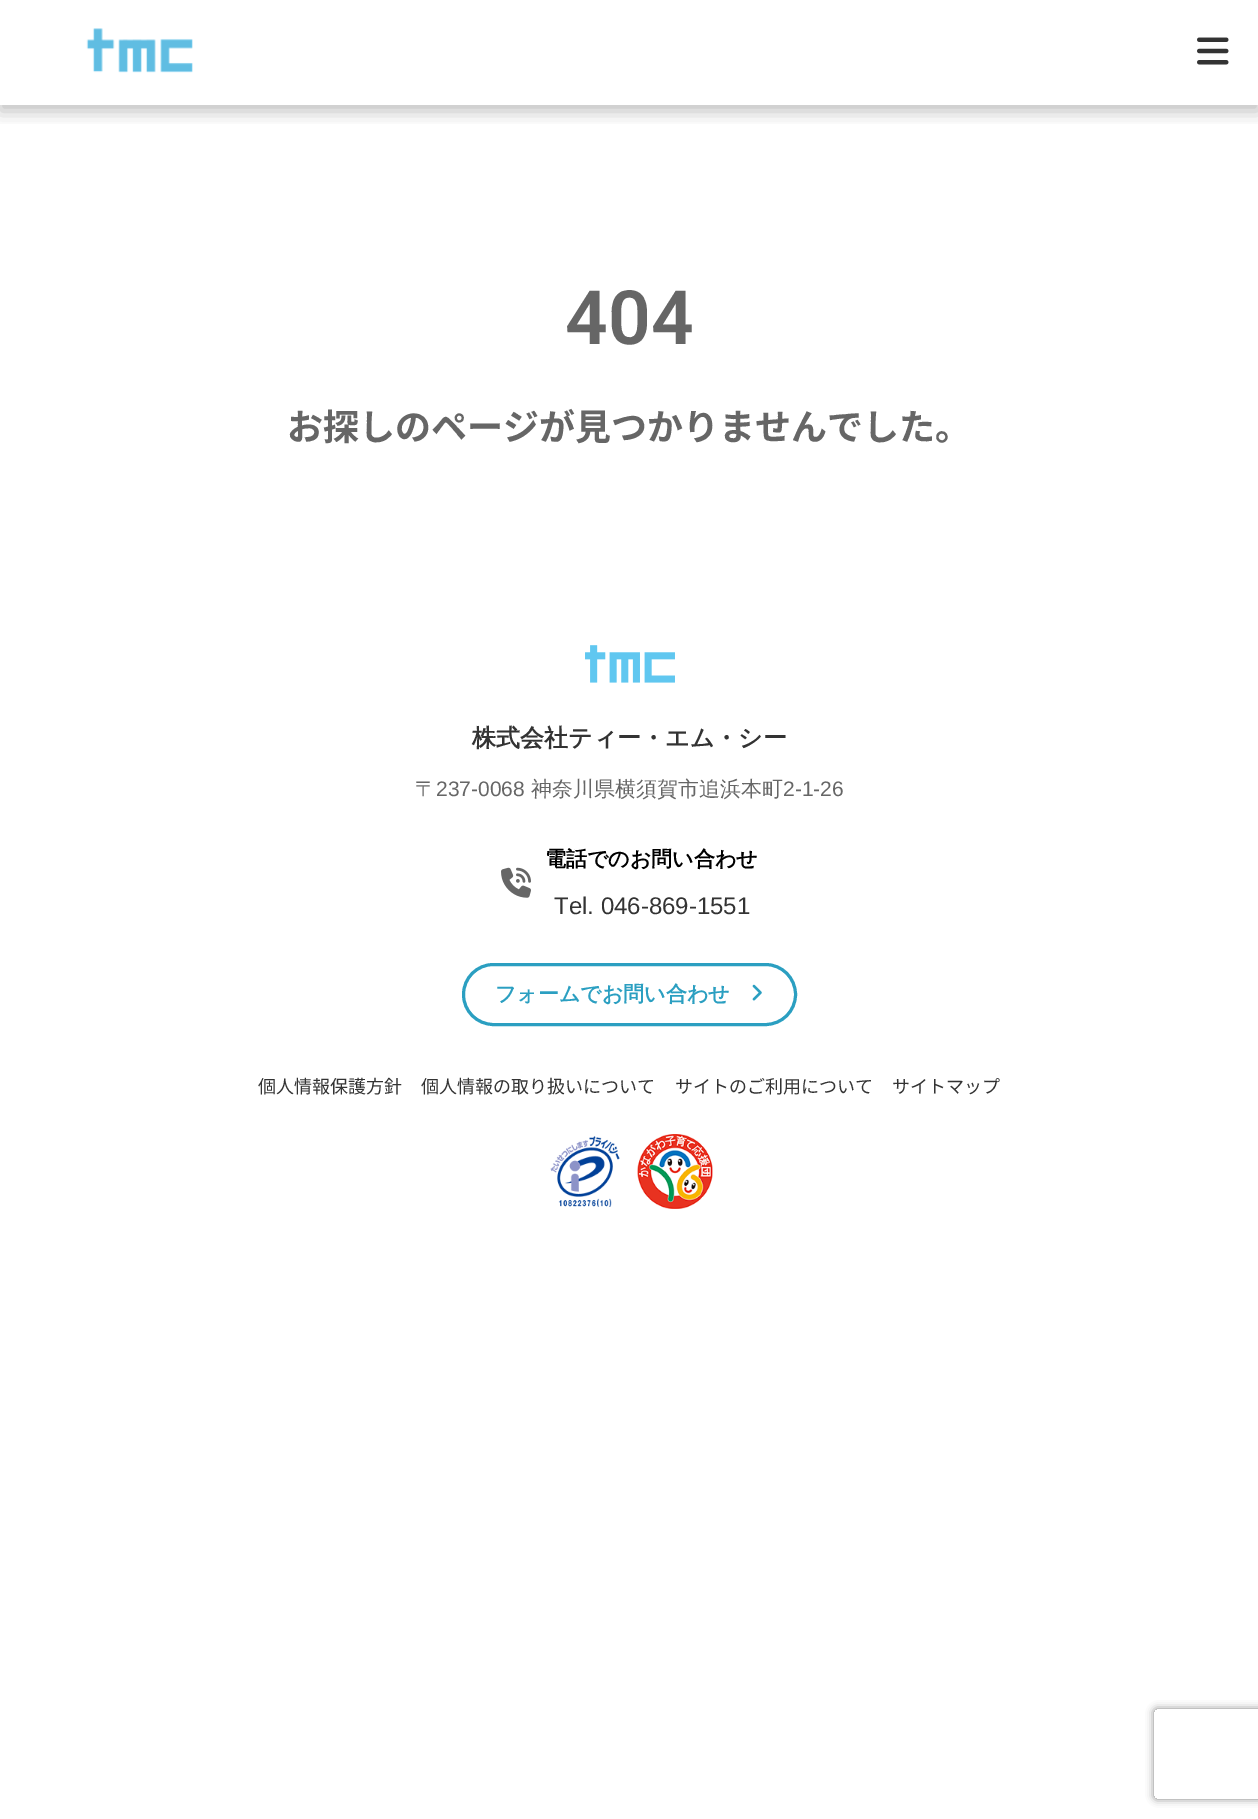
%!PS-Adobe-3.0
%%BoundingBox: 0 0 1258 1819
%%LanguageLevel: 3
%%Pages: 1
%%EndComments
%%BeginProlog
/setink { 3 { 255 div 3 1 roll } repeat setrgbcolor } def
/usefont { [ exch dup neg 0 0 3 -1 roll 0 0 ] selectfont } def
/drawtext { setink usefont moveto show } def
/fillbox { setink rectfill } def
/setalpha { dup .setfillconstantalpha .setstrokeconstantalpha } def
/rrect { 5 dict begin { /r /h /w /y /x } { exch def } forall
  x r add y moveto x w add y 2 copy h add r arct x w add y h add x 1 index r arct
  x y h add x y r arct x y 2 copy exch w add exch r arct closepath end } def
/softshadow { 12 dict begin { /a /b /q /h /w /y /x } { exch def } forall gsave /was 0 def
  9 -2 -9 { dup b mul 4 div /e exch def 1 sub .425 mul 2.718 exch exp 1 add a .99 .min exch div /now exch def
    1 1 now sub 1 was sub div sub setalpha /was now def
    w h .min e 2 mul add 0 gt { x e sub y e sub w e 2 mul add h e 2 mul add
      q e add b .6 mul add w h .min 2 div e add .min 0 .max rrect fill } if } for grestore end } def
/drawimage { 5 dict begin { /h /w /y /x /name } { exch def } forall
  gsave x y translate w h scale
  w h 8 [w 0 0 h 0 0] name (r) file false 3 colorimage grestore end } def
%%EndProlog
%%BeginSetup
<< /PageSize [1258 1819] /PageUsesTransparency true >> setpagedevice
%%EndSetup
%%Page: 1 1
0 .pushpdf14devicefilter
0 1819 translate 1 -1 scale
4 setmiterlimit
0 0 1258 1819 255 255 255 fillbox
gsave
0 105 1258 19 rectclip
0 0 0 setink
0 6 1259 105 0 9 0.25 softshadow
grestore
(assets/img1.rgb) 86 28 107 45 drawimage
(assets/img2.rgb) 1197 37 32 28 drawimage
(404) 565 344 /Roboto-SemiBold 75 102 102 102 drawtext
(お探しのページが見つかりませんでした。) 287 440 /NotoSansJP-Bold 36 102 102 102 drawtext
(assets/img3.rgb) 585 645 90 38 drawimage
(株式会社ティー・エム・シー) 472 746 /WenQuanYiZenHei-Bold 24 51 51 51 drawtext
(〒) 415 796 /WenQuanYiZenHei-Medium 21 102 102 102 drawtext
(237-0068) 436 796 /LiberationSans-Regular 21 102 102 102 drawtext
(神奈川県横須賀市追浜本町) 531 796 /WenQuanYiZenHei-Medium 21 102 102 102 drawtext
(2-1-26) 783 796 /LiberationSans-Regular 21 102 102 102 drawtext
(assets/img4.rgb) 501 867 30 31 drawimage
(電話でのお問い合わせ) 545 866 /WenQuanYiZenHei-Bold 21 0 0 0 drawtext
(Tel. 046-869-1551) 554 914 /LiberationSans-Regular 24 51 51 51 drawtext
43 159 193 setink
3 setlinewidth
463.5 964.5 332 60 30 rrect stroke
(フォームでお問い合わせ) 495 1001 /WenQuanYiZenHei-Bold 21 43 159 193 drawtext
(assets/img5.rgb) 752 984 10 17 drawimage
(個人情報保護方針) 258 1093 /NotoSansJP-Regular 18 51 51 51 drawtext
(個人情報の取り扱いについて) 421 1093 /NotoSansJP-Regular 18 51 51 51 drawtext
(サイトのご利用について) 675 1093 /NotoSansJP-Regular 18 51 51 51 drawtext
(サイトマップ) 892 1093 /NotoSansJP-Regular 18 51 51 51 drawtext
(assets/img6.rgb) 550 1136 70 71 drawimage
(assets/img7.rgb) 637 1134 76 75 drawimage
gsave
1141 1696 moveto 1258 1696 lineto 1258 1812 lineto 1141 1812 lineto closepath 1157 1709 moveto 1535 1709 lineto 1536.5 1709 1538 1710.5 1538 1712 curveto 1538 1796 lineto 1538 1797.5 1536.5 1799 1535 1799 curveto 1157 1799 lineto 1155.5 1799 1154 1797.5 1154 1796 curveto 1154 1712 lineto 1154 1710.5 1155.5 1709 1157 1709 curveto closepath eoclip newpath
128 128 128 setink
1154 1709 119 90 3 4 1 softshadow
grestore
.poppdf14devicefilter showpage
%%EOF
